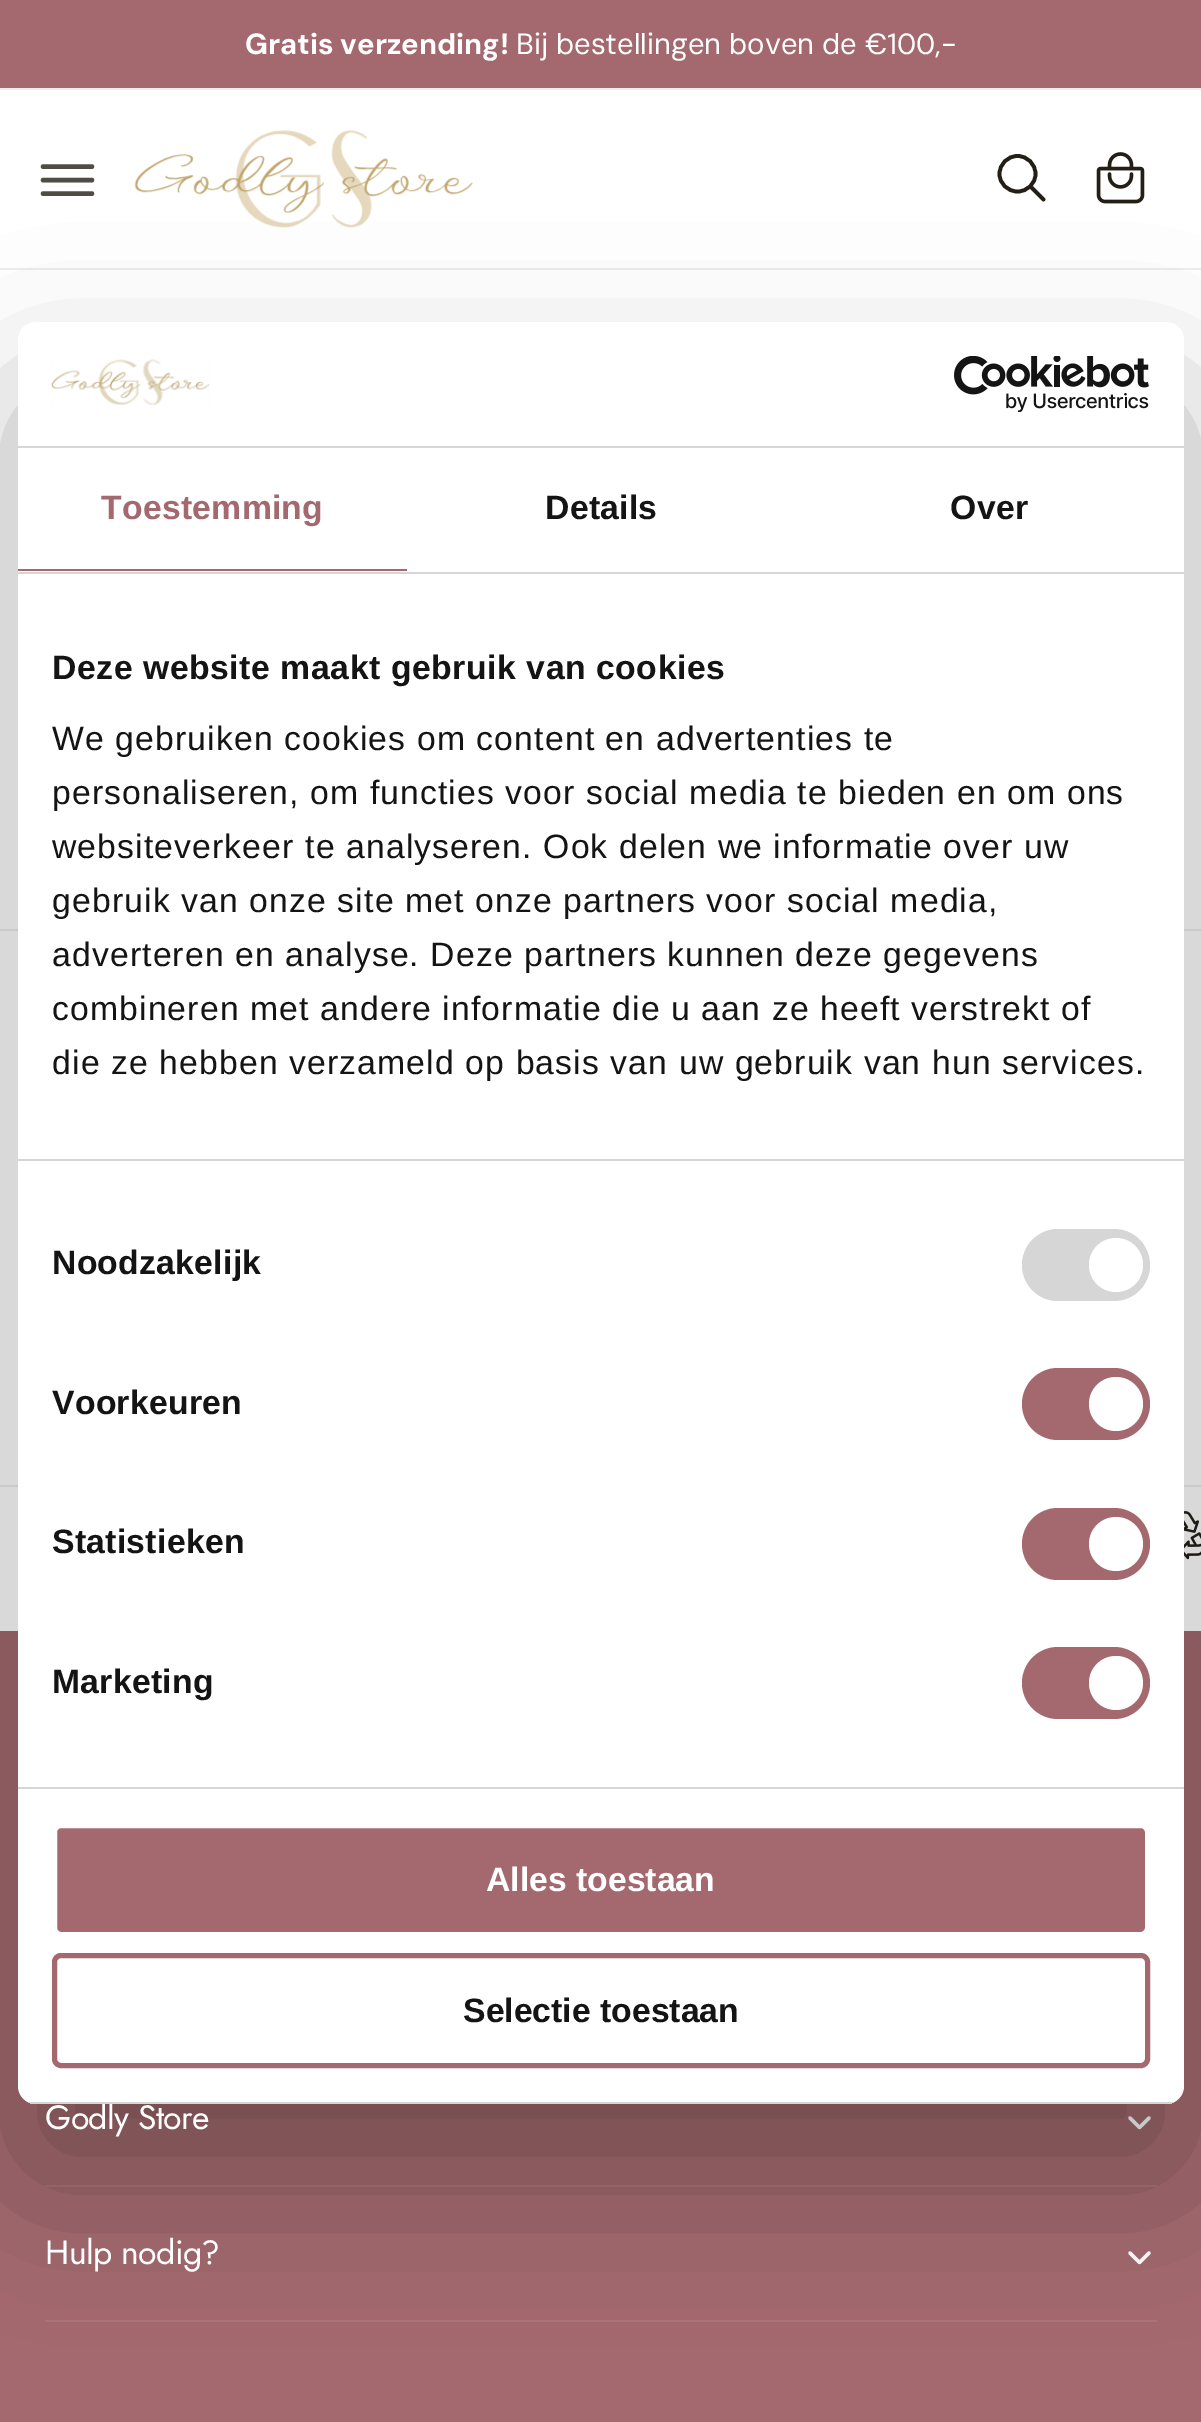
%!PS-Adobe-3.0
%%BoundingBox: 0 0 1201 2422
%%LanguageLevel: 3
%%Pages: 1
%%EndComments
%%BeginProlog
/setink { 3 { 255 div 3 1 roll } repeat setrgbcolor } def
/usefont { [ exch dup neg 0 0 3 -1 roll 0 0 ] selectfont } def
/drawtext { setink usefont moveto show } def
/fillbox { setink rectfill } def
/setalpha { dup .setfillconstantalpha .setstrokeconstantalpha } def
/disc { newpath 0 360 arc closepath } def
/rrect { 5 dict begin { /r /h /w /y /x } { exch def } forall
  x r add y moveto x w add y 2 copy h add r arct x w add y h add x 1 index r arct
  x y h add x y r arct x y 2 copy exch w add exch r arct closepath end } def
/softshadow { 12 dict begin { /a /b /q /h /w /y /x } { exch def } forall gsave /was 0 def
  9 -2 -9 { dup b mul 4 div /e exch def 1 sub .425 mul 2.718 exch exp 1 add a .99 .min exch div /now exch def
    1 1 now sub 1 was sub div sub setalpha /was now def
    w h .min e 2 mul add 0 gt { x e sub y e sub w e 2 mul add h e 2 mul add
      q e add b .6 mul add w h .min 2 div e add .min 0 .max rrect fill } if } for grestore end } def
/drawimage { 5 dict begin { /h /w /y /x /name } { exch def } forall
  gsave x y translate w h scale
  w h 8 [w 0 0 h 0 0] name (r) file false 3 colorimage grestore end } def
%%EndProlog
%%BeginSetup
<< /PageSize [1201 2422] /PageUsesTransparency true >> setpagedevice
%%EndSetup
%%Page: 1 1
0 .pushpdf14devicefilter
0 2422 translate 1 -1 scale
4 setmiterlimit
0 0 1201 2422 255 255 255 fillbox
0 0 1201 88 163 105 111 fillbox
(Gratis verzending!) 245 54 /DMSans-Bold 29.25 255 255 255 drawtext
(Bij bestellingen boven de €100,-) 516 54 /DMSans-Regular 29.25 255 255 255 drawtext
0 88 1201 2 237 237 236 fillbox
0 268 1201 2 237 237 236 fillbox
79 76 69 setink
4.5 setlinewidth
1 setlinecap
43 166.5 moveto 92 166.5 lineto 43 180 moveto 92 180 lineto 43 193.5 moveto 92 193.5 lineto stroke
(assets/img1.rgb) 134 130 339 98 drawimage
35 31 23 setink
3.7 setlinewidth
0 setlinecap
1017.5 156 moveto 1007.5 156 999.5 164 999.5 174 curveto 999.5 183.5 1007.5 191.5 1017.5 191.5 curveto 1027.5 191.5 1035.5 183.5 1035.5 174 curveto 1035.5 164 1027.5 156 1017.5 156 curveto closepath stroke
1 setlinecap
1031 187 moveto 1043.5 199.5 lineto stroke
(assets/img2.rgb) 1096 152 49 52 drawimage
0 929 1201 2 237 237 236 fillbox
0 1485 1201 2 237 237 236 fillbox
(assets/img5.rgb) 1184 1511 17 49 drawimage
0 1631 1201 791 163 105 111 fillbox
45 2185 1112 2 170 117 123 fillbox
255 255 255 setink
3.2 setlinewidth
1 setlinejoin
1130 2118 moveto 1139.5 2127.5 lineto 1149 2118 lineto stroke
45 2320 1112 2 170 117 123 fillbox
255 255 255 setink
1130 2253 moveto 1139.5 2262.5 lineto 1149 2253 lineto stroke
0 0 0 setink
18 394 1166 1782 18 76.5 0.3 softshadow
255 255 255 setink
18 322 1166 1782 18 rrect fill
18 446 1166 2 214 214 214 fillbox
(assets/img3.rgb) 51 359 159 46 drawimage
(assets/img4.rgb) 954 356 195 56 drawimage
18 572 1166 2 214 214 214 fillbox
18 569 389 2 163 105 111 fillbox
/LiberationSans-Bold 33.75 usefont
101 519 moveto 0.25 0 (Toestemming) ashow
20 20 20 setink
545 519 moveto 0.25 0 (Details) ashow
950 519 moveto 0.25 0 (Over) ashow
18 1159 1166 2 214 214 214 fillbox
20 20 20 setink
52 679 moveto 0.55 0 (Deze website maakt gebruik van cookies) ashow
/LiberationSans-Regular 33.75 usefont
52 750 moveto 1.12 0 (We gebruiken cookies om content en advertenties te) ashow
52 804 moveto 1.12 0 (personaliseren, om functies voor social media te bieden en om ons) ashow
52 858 moveto 1.12 0 (websiteverkeer te analyseren. Ook delen we informatie over uw) ashow
52 912 moveto 1.12 0 (gebruik van onze site met onze partners voor social media,) ashow
52 966 moveto 1.12 0 (adverteren en analyse. Deze partners kunnen deze gegevens) ashow
52 1020 moveto 1.12 0 (combineren met andere informatie die u aan ze heeft verstrekt of) ashow
52 1074 moveto 1.12 0 (die ze hebben verzameld op basis van uw gebruik van hun services.) ashow
18 1787 1166 2 214 214 214 fillbox
/LiberationSans-Bold 33.75 usefont
20 20 20 setink
52 1274 moveto 0.25 0 (Noodzakelijk) ashow
214 214 214 setink
1022 1229 128 72 36 rrect fill
255 255 255 setink
1116 1265 27 disc fill
20 20 20 setink
52 1414 moveto 0.25 0 (Voorkeuren) ashow
163 105 111 setink
1022 1368 128 72 36 rrect fill
255 255 255 setink
1116 1404 27 disc fill
20 20 20 setink
52 1553 moveto 0.25 0 (Statistieken) ashow
163 105 111 setink
1022 1508 128 72 36 rrect fill
255 255 255 setink
1116 1544 27 disc fill
20 20 20 setink
52 1693 moveto 0.25 0 (Marketing) ashow
163 105 111 setink
1022 1647 128 72 36 rrect fill
255 255 255 setink
1116 1683 27 disc fill
/Jost-Regular 33.75 usefont
45 2129 moveto -0.6 0 (Godly Store) ashow
gsave
18 322 1166 1782 18 rrect clip newpath
28 2102 1146 2 214 214 214 fillbox
grestore
163 105 111 setink
54.5 1825.5 1093 109 6.5 rrect gsave fill grestore
255 255 255 setink
5 setlinewidth
0 setlinecap
0 setlinejoin
stroke
(Alles toestaan) 486 1891 /LiberationSans-Bold 33.75 255 255 255 drawtext
163 105 111 setink
54.5 1955.5 1093 110 6.5 rrect stroke
(Selectie toestaan) 463 2022 /LiberationSans-Bold 33.75 20 20 20 drawtext
/Jost-Regular 33.75 usefont
255 255 255 setink
45 2264 moveto -0.6 0 (Hulp nodig?) ashow
.poppdf14devicefilter showpage
%%EOF
